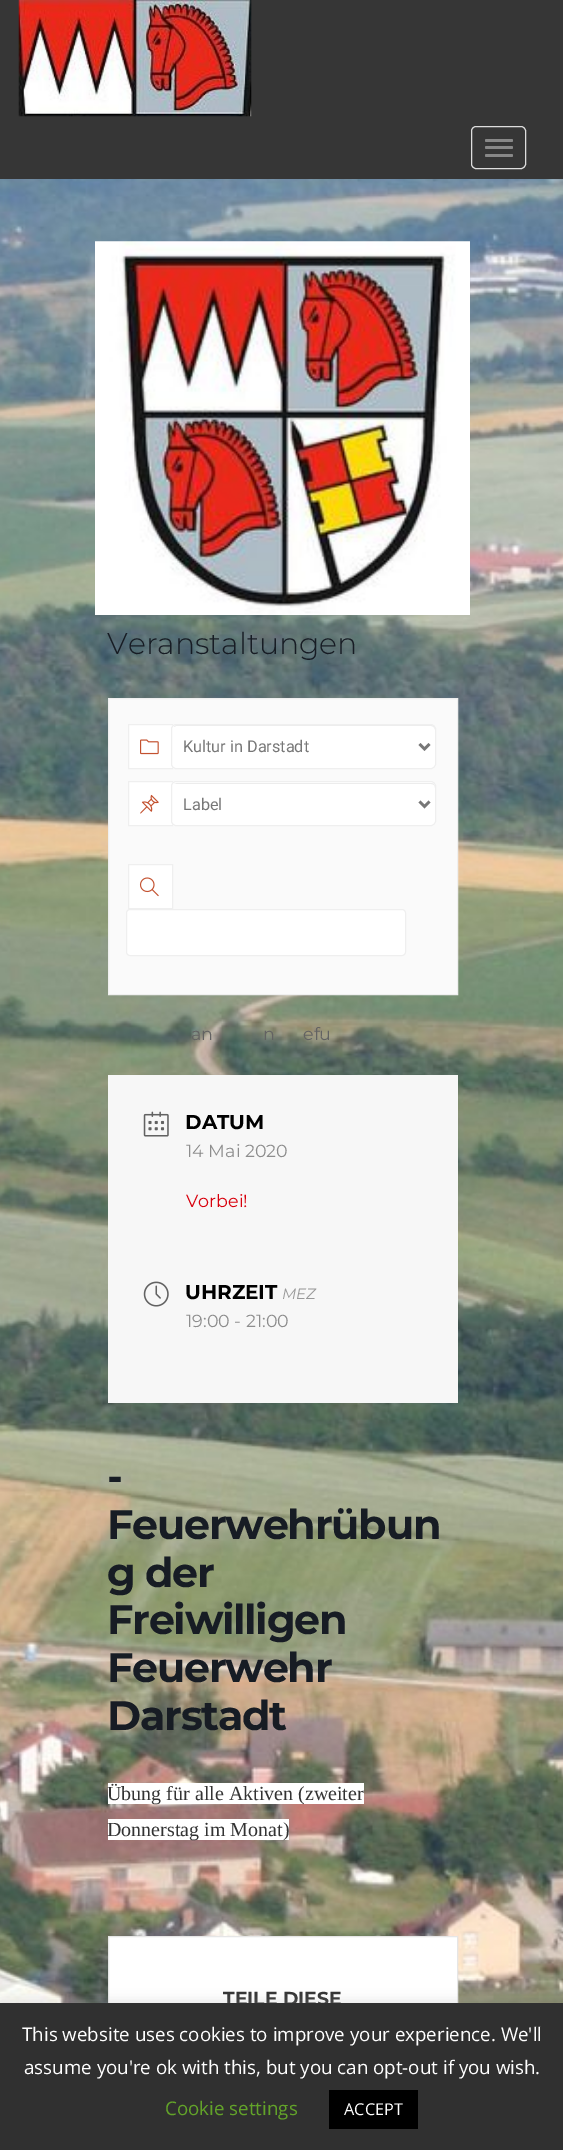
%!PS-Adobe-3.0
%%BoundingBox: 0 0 563 2150
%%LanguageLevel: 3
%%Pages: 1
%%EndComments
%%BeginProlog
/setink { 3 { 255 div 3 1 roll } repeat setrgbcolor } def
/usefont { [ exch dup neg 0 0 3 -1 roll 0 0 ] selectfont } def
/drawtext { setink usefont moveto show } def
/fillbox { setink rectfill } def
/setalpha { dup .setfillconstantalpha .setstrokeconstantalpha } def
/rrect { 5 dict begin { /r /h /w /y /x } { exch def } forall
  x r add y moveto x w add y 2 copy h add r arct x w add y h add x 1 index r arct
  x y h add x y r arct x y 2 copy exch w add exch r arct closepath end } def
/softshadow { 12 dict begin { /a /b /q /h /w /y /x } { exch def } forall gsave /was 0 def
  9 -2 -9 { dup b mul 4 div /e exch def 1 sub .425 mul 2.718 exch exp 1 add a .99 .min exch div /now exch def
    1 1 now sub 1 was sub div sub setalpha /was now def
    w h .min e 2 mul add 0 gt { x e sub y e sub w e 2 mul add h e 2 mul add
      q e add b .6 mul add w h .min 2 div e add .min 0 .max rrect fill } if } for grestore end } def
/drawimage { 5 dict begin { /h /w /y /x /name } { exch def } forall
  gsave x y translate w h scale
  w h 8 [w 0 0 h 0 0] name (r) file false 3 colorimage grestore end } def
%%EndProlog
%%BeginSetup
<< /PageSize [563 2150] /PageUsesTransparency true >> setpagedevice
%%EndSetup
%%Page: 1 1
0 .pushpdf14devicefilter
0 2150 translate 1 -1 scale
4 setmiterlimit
0 0 563 2150 255 255 255 fillbox
(assets/img1.rgb) 0 179 563 1824 drawimage
0 0 563 179 54 54 54 fillbox
(assets/img2.rgb) 18 0 234 117 drawimage
221 221 221 setink
471.5 126.5 54 42 4.5 rrect stroke
136 136 136 setink
485 139 28 3 1.5 rrect fill
485 146 28 3 1.5 rrect fill
485 154 28 3 1.5 rrect fill
(assets/img3.rgb) 95 241 375 374 drawimage
(Veranstaltungen) 107 654 /Montserrat-Light 30 23 28 36 drawtext
250 250 250 setink
108.5 698.5 moveto 457.5 698.5 lineto 457.5 994.5 lineto 108.5 994.5 lineto closepath gsave fill grestore
239 239 239 setink
stroke
255 255 255 setink
128.5 724.5 moveto 172.5 724.5 lineto 172.5 768.5 lineto 128.5 768.5 lineto closepath gsave fill grestore
239 239 239 setink
stroke
(assets/img4.rgb) 140 739 19 16 drawimage
255 255 255 setink
171 724 265 45 5 rrect fill
236 236 236 setink
176 726 moveto 431 726 lineto 433 726 435 728 435 730 curveto 435 729 lineto 435 727 433 725 431 725 curveto 177 725 lineto 176 725 174 726 174 727 curveto closepath fill
239 239 239 setink
171.5 724.5 264 44 4.5 rrect stroke
119 119 119 setink
2.5 setlinewidth
419.5 744 moveto 424.5 749 lineto 429.5 744 lineto stroke
(Kultur in Darstadt) 183 752 /Roboto-Regular 16.25 119 119 119 drawtext
255 255 255 setink
128.5 781.5 moveto 172.5 781.5 lineto 172.5 825.5 lineto 128.5 825.5 lineto closepath gsave fill grestore
239 239 239 setink
1 setlinewidth
stroke
(assets/img5.rgb) 140 794 19 20 drawimage
255 255 255 setink
171 781 265 45 5 rrect fill
236 236 236 setink
176 784 moveto 431 784 lineto 433 784 435 785 435 788 curveto 435 785 434 783 431 783 curveto 177 783 lineto 174 784 lineto closepath fill
239 239 239 setink
171.5 781.5 264 44 4.5 rrect stroke
119 119 119 setink
2.5 setlinewidth
419.5 801.5 moveto 424.5 806.5 lineto 429.5 801.5 lineto stroke
(Label) 183 810 /Roboto-Regular 16.25 119 119 119 drawtext
255 255 255 setink
128.5 864.5 moveto 172.5 864.5 lineto 172.5 908.5 lineto 128.5 908.5 lineto closepath gsave fill grestore
239 239 239 setink
1 setlinewidth
stroke
(assets/img6.rgb) 139 877 20 20 drawimage
255 255 255 setink
126.5 909.5 279 46 3.5 rrect gsave fill grestore
239 239 239 setink
stroke
(an) 191 1040 /Montserrat-Regular 17.5 98 98 98 drawtext
(n) 263 1040 /Montserrat-Regular 17.5 98 98 98 drawtext
(efu) 303 1040 /Montserrat-Regular 17.5 98 98 98 drawtext
108 1075 350 328 247 247 247 fillbox
(assets/img7.rgb) 143 1111 26 26 drawimage
(DATUM) 185 1129 /Montserrat-Bold 20 0 0 0 drawtext
(14 Mai 2020) 186 1157 /Montserrat-Regular 17.5 141 141 141 drawtext
(Vorbei!) 186 1207 /Montserrat-Regular 17.5 216 0 12 drawtext
(assets/img8.rgb) 143 1281 26 26 drawimage
(UHRZEIT) 185 1299 /Montserrat-Bold 20 0 0 0 drawtext
(MEZ) 282 1299 /Montserrat-Italic 15 153 153 153 drawtext
(19:00 - 21:00) 186 1327 /Montserrat-Regular 17.5 141 141 141 drawtext
/Montserrat-Bold 41.25 usefont
23 28 36 setink
107 1491 moveto -1.25 0 (-) ashow
107 1539 moveto -1.25 0 (Feuerwehrübun) ashow
107 1587 moveto -1.25 0 (g der) ashow
107 1634 moveto -1.25 0 (Freiwilligen) ashow
107 1682 moveto -1.25 0 (Feuerwehr) ashow
107 1730 moveto -1.25 0 (Darstadt) ashow
108 1783 256 21 255 255 255 fillbox
(Übung für alle Aktiven \(zweiter) 107 1800 /LiberationSerif-Regular 20 51 51 51 drawtext
108 1819 181 21 255 255 255 fillbox
(Donnerstag im Monat\)) 107 1836 /LiberationSerif-Regular 20 51 51 51 drawtext
109 1937 348 66 255 255 255 fillbox
230 230 230 setink
108.5 1936.5 349 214 rectstroke
(TEILE DIESE) 223 2005 /Montserrat-Bold 18.75 51 51 51 drawtext
172 171 171 setink
0 2001 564 148 0 6 0.3 softshadow
0 2003 563 147 48 48 48 fillbox
(This website uses cookies to improve your experience. We'll) 22 2041 /OpenSans-Regular 18.75 255 255 255 drawtext
(assume you're ok with this, but you can opt-out if you wish.) 24 2074 /OpenSans-Regular 18.75 255 255 255 drawtext
(Cookie settings) 165 2115 /OpenSans-Regular 18.75 98 163 41 drawtext
329 2090 89 39 0 0 0 fillbox
(ACCEPT) 344 2115 /OpenSans-Regular 16.25 255 255 255 drawtext
.poppdf14devicefilter showpage
%%EOF
